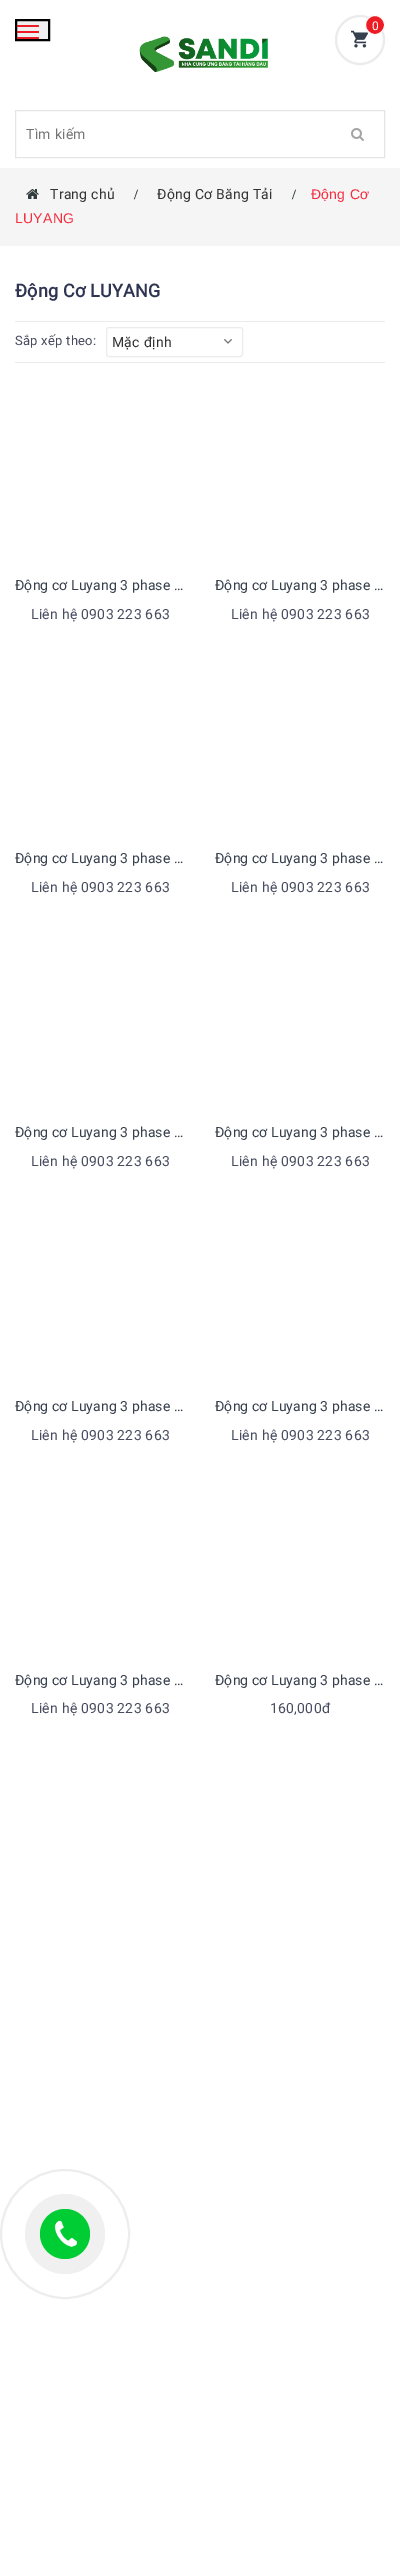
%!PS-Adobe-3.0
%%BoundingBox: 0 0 400 2569
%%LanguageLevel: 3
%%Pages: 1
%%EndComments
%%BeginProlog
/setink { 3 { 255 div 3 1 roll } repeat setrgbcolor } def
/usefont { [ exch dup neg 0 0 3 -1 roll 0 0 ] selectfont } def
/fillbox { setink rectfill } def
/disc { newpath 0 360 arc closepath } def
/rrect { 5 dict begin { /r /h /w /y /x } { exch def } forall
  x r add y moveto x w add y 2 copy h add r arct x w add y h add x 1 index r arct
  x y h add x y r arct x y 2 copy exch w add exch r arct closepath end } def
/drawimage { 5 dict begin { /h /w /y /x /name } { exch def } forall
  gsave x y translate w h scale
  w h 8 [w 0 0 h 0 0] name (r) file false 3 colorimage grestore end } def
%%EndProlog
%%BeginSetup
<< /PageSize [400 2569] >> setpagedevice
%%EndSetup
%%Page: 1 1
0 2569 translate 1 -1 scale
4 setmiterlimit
0 0 400 2569 255 255 255 fillbox
239 239 239 setink
16 20 moveto 49 20 lineto 49 40 lineto 16 40 lineto closepath gsave fill grestore
0 0 0 setink
2 setlinewidth
stroke
237 27 36 setink
17 25 22 2 1 rrect fill
17 31 22 2 1 rrect fill
17 37 22 2 1 rrect fill
235 235 235 setink
360 40 24 disc stroke
(assets/img1.rgb) 351 30 17 18 drawimage
237 27 36 setink
375 25 9.5 disc gsave fill grestore
255 255 255 setink
1 setlinewidth
stroke
/Roboto-Regular 12 usefont
372 30 moveto 0.25 0 (0) ashow
(assets/img2.rgb) 139 36 129 36 drawimage
229 229 229 setink
15.5 110.5 369 47 rectstroke
/Roboto-Regular 14 usefont
117 117 117 setink
26 139 moveto 0.25 0 (Tìm kiếm) ashow
(assets/img3.rgb) 351 128 13 13 drawimage
0 168 400 78 245 245 245 fillbox
(assets/img4.rgb) 26 189 13 10 drawimage
51 51 51 setink
50 199 moveto 0.25 0 (Trang chủ) ashow
/LiberationSerif-Bold 14 usefont
50 60 63 setink
134 199 moveto 0.25 0 (/) ashow
/Roboto-Regular 14 usefont
51 51 51 setink
157 199 moveto 0.25 0 (Động Cơ Băng Tải) ashow
/LiberationSerif-Bold 14 usefont
50 60 63 setink
292 199 moveto 0.25 0 (/) ashow
/LiberationSans-Regular 14 usefont
246 45 62 setink
311 199 moveto 0.25 0 (Động Cơ) ashow
15 223 moveto 0.25 0 (LUYANG) ashow
/Roboto-Bold 18 usefont
46 53 83 setink
15 297 moveto 0.25 0 (Động Cơ LUYANG) ashow
15 321 370 1 235 235 235 fillbox
15 362 370 1 235 235 235 fillbox
/Roboto-Regular 13 usefont
71 76 95 setink
15 345 moveto 0.25 0 (Sắp xếp theo:) ashow
(assets/img5.rgb) 224 339 8 5 drawimage
234 236 237 setink
106.5 327.5 136 29 2.5 rrect stroke
/Roboto-Regular 14 usefont
51 51 51 setink
112 347 moveto 0.25 0 (Mặc định) ashow
54 63 77 setink
15 590 moveto 0.1 0 (Động cơ Luyang 3 phase …) ashow
71 76 95 setink
31 619 moveto 0.25 0 (Liên hệ 0903 223 663) ashow
54 63 77 setink
215 590 moveto 0.1 0 (Động cơ Luyang 3 phase …) ashow
71 76 95 setink
231 619 moveto 0.25 0 (Liên hệ 0903 223 663) ashow
54 63 77 setink
15 863 moveto 0.1 0 (Động cơ Luyang 3 phase …) ashow
71 76 95 setink
31 892 moveto 0.25 0 (Liên hệ 0903 223 663) ashow
54 63 77 setink
215 863 moveto 0.1 0 (Động cơ Luyang 3 phase …) ashow
71 76 95 setink
231 892 moveto 0.25 0 (Liên hệ 0903 223 663) ashow
54 63 77 setink
15 1137 moveto 0.1 0 (Động cơ Luyang 3 phase …) ashow
71 76 95 setink
31 1166 moveto 0.25 0 (Liên hệ 0903 223 663) ashow
54 63 77 setink
215 1137 moveto 0.1 0 (Động cơ Luyang 3 phase …) ashow
71 76 95 setink
231 1166 moveto 0.25 0 (Liên hệ 0903 223 663) ashow
54 63 77 setink
15 1411 moveto 0.1 0 (Động cơ Luyang 3 phase …) ashow
71 76 95 setink
31 1440 moveto 0.25 0 (Liên hệ 0903 223 663) ashow
54 63 77 setink
215 1411 moveto 0.1 0 (Động cơ Luyang 3 phase …) ashow
71 76 95 setink
231 1440 moveto 0.25 0 (Liên hệ 0903 223 663) ashow
54 63 77 setink
15 1685 moveto 0.1 0 (Động cơ Luyang 3 phase …) ashow
71 76 95 setink
31 1713 moveto 0.25 0 (Liên hệ 0903 223 663) ashow
54 63 77 setink
215 1685 moveto 0.1 0 (Động cơ Luyang 3 phase …) ashow
71 76 95 setink
270 1713 moveto 0.25 0 (160,000đ) ashow
238 237 237 setink
2 setlinewidth
65 2234 64 disc stroke
240 240 240 setink
65 2234 40 disc fill
0 204 51 setink
65 2234 25 disc fill
(assets/img6.rgb) 54 2220 23 27 drawimage
showpage
%%EOF
